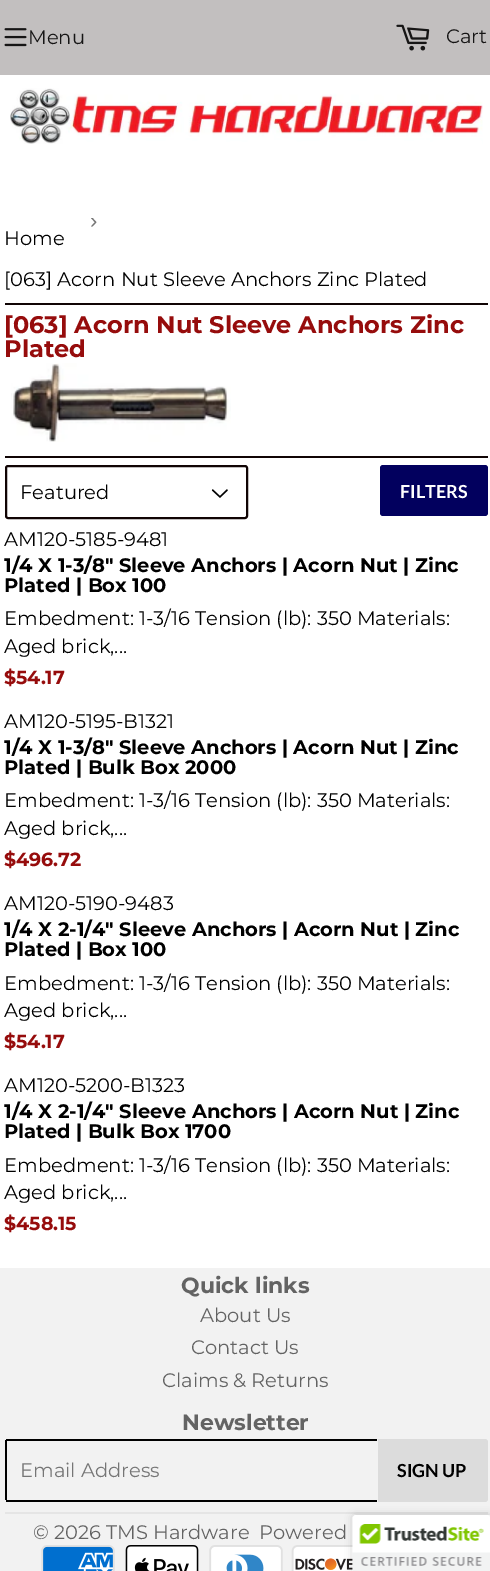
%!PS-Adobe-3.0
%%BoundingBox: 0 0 490 1571
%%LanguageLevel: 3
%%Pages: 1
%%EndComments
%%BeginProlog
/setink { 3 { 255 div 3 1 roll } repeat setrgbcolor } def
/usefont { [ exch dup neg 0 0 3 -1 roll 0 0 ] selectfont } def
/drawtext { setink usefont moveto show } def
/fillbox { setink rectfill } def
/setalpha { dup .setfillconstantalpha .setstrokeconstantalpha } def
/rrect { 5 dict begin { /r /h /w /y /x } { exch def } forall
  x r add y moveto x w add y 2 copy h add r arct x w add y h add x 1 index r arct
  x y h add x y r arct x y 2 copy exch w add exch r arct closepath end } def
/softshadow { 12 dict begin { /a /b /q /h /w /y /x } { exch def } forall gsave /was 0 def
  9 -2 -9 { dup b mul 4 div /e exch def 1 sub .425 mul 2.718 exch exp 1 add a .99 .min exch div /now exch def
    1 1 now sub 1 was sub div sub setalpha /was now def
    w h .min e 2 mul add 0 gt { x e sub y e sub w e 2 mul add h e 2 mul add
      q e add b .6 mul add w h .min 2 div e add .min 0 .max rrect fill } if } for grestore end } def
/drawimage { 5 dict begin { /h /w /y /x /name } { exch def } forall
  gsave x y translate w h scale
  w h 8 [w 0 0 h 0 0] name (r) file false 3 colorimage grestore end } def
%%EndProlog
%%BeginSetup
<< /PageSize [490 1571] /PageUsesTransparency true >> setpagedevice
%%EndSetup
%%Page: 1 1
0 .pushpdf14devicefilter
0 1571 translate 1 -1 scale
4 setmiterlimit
0 0 490 1571 255 255 255 fillbox
0 0 490 75 194 191 191 fillbox
(assets/img1.rgb) 4 28 23 19 drawimage
(Menu) 28 44 /Montserrat-Regular 19.5 22 21 21 drawtext
(assets/img2.rgb) 396 24 34 27 drawimage
(Cart) 446 43 /Montserrat-Regular 19.5 22 21 21 drawtext
(assets/img3.rgb) 10 88 473 56 drawimage
5 303 483 2 16 4 4 fillbox
(›) 90 228 /LiberationSans-Regular 22 118 118 118 drawtext
(Home) 4 245 /Montserrat-Regular 19.5 0 0 0 drawtext
([063] Acorn Nut Sleeve Anchors Zinc Plated) 4 286 /Montserrat-Regular 19.5 0 0 0 drawtext
([063] Acorn Nut Sleeve Anchors Zinc) 4 333 /Montserrat-Bold 24 150 12 12 drawtext
(Plated) 4 357 /Montserrat-Bold 24 150 12 12 drawtext
(assets/img4.rgb) 11 363 220 79 drawimage
5 456 483 2 16 4 4 fillbox
(assets/img5.rgb) 211 489 17 9 drawimage
2 setlinewidth
6 466 241 52 2 rrect stroke
(Featured) 20 499 /Montserrat-Regular 19.5 0 0 0 drawtext
2 0 94 setink
380 465 108 51 3 rrect fill
(FILTERS) 400 498 /Lato-Bold 18 255 255 255 drawtext
(AM120-5185-9481) 4 546 /Montserrat-Regular 19.5 0 0 0 drawtext
(1/4 X 1-3/8" Sleeve Anchors | Acorn Nut | Zinc) 4 572 /Montserrat-Bold 19.5 0 0 0 drawtext
(Plated | Box 100) 4 592 /Montserrat-Bold 19.5 0 0 0 drawtext
(Embedment: 1-3/16 Tension \(lb\): 350 Materials:) 4 625 /Montserrat-Regular 19.5 0 0 0 drawtext
(Aged brick,...) 4 653 /Montserrat-Regular 19.5 0 0 0 drawtext
($54.17) 4 684 /Montserrat-Bold 19 150 12 12 drawtext
(AM120-5195-B1321) 4 728 /Montserrat-Regular 19.5 0 0 0 drawtext
(1/4 X 1-3/8" Sleeve Anchors | Acorn Nut | Zinc) 4 754 /Montserrat-Bold 19.5 0 0 0 drawtext
(Plated | Bulk Box 2000) 4 774 /Montserrat-Bold 19.5 0 0 0 drawtext
(Embedment: 1-3/16 Tension \(lb\): 350 Materials:) 4 807 /Montserrat-Regular 19.5 0 0 0 drawtext
(Aged brick,...) 4 835 /Montserrat-Regular 19.5 0 0 0 drawtext
($496.72) 4 866 /Montserrat-Bold 19 150 12 12 drawtext
(AM120-5190-9483) 4 910 /Montserrat-Regular 19.5 0 0 0 drawtext
(1/4 X 2-1/4" Sleeve Anchors | Acorn Nut | Zinc) 4 936 /Montserrat-Bold 19.5 0 0 0 drawtext
(Plated | Box 100) 4 956 /Montserrat-Bold 19.5 0 0 0 drawtext
(Embedment: 1-3/16 Tension \(lb\): 350 Materials:) 4 990 /Montserrat-Regular 19.5 0 0 0 drawtext
(Aged brick,...) 4 1017 /Montserrat-Regular 19.5 0 0 0 drawtext
($54.17) 4 1048 /Montserrat-Bold 19 150 12 12 drawtext
(AM120-5200-B1323) 4 1092 /Montserrat-Regular 19.5 0 0 0 drawtext
(1/4 X 2-1/4" Sleeve Anchors | Acorn Nut | Zinc) 4 1118 /Montserrat-Bold 19.5 0 0 0 drawtext
(Plated | Bulk Box 1700) 4 1138 /Montserrat-Bold 19.5 0 0 0 drawtext
(Embedment: 1-3/16 Tension \(lb\): 350 Materials:) 4 1172 /Montserrat-Regular 19.5 0 0 0 drawtext
(Aged brick,...) 4 1199 /Montserrat-Regular 19.5 0 0 0 drawtext
($458.15) 4 1230 /Montserrat-Bold 19 150 12 12 drawtext
0 1268 490 303 242 242 242 fillbox
(Quick links) 181 1293 /Montserrat-Bold 22 99 99 99 drawtext
(About Us) 200 1322 /Montserrat-Regular 19.5 99 99 99 drawtext
(Contact Us) 191 1354 /Montserrat-Regular 19.5 99 99 99 drawtext
(Claims & Returns) 162 1387 /Montserrat-Regular 19.5 99 99 99 drawtext
(Newsletter) 182 1430 /Montserrat-Bold 22 99 99 99 drawtext
6 1439 371 2 0 0 0 fillbox
6 1500 371 2 0 0 0 fillbox
5 1440 2 60 0 0 0 fillbox
(Email Address) 20 1477 /Montserrat-Regular 19.5 118 118 118 drawtext
220 220 220 setink
378 1439 moveto 485 1439 lineto 486.5 1439 488 1440.5 488 1442 curveto 488 1499 lineto 488 1500.5 486.5 1502 485 1502 curveto 378 1502 lineto closepath fill
(SIGN UP) 397 1477 /Lato-Bold 18 0 0 0 drawtext
5 1512 483 2 229 229 229 fillbox
(© 2026 TMS Hardware) 33 1539 /Montserrat-Regular 19.5 99 99 99 drawtext
(Powered) 259 1539 /Montserrat-Regular 19.5 99 99 99 drawtext
(assets/img6.rgb) 41 1545 74 26 drawimage
(assets/img7.rgb) 125 1545 74 26 drawimage
(assets/img8.rgb) 209 1545 74 26 drawimage
(assets/img9.rgb) 291 1545 62 26 drawimage
0 0 0 setink
353 1515 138 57 3 4 0.2 softshadow
255 255 255 setink
356 1515 moveto 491 1515 lineto 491 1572 lineto 353 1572 lineto 353 1518 lineto 353 1516.5 354.5 1515 356 1515 curveto closepath fill
(assets/img10.rgb) 352 1515 138 56 drawimage
.poppdf14devicefilter showpage
%%EOF
